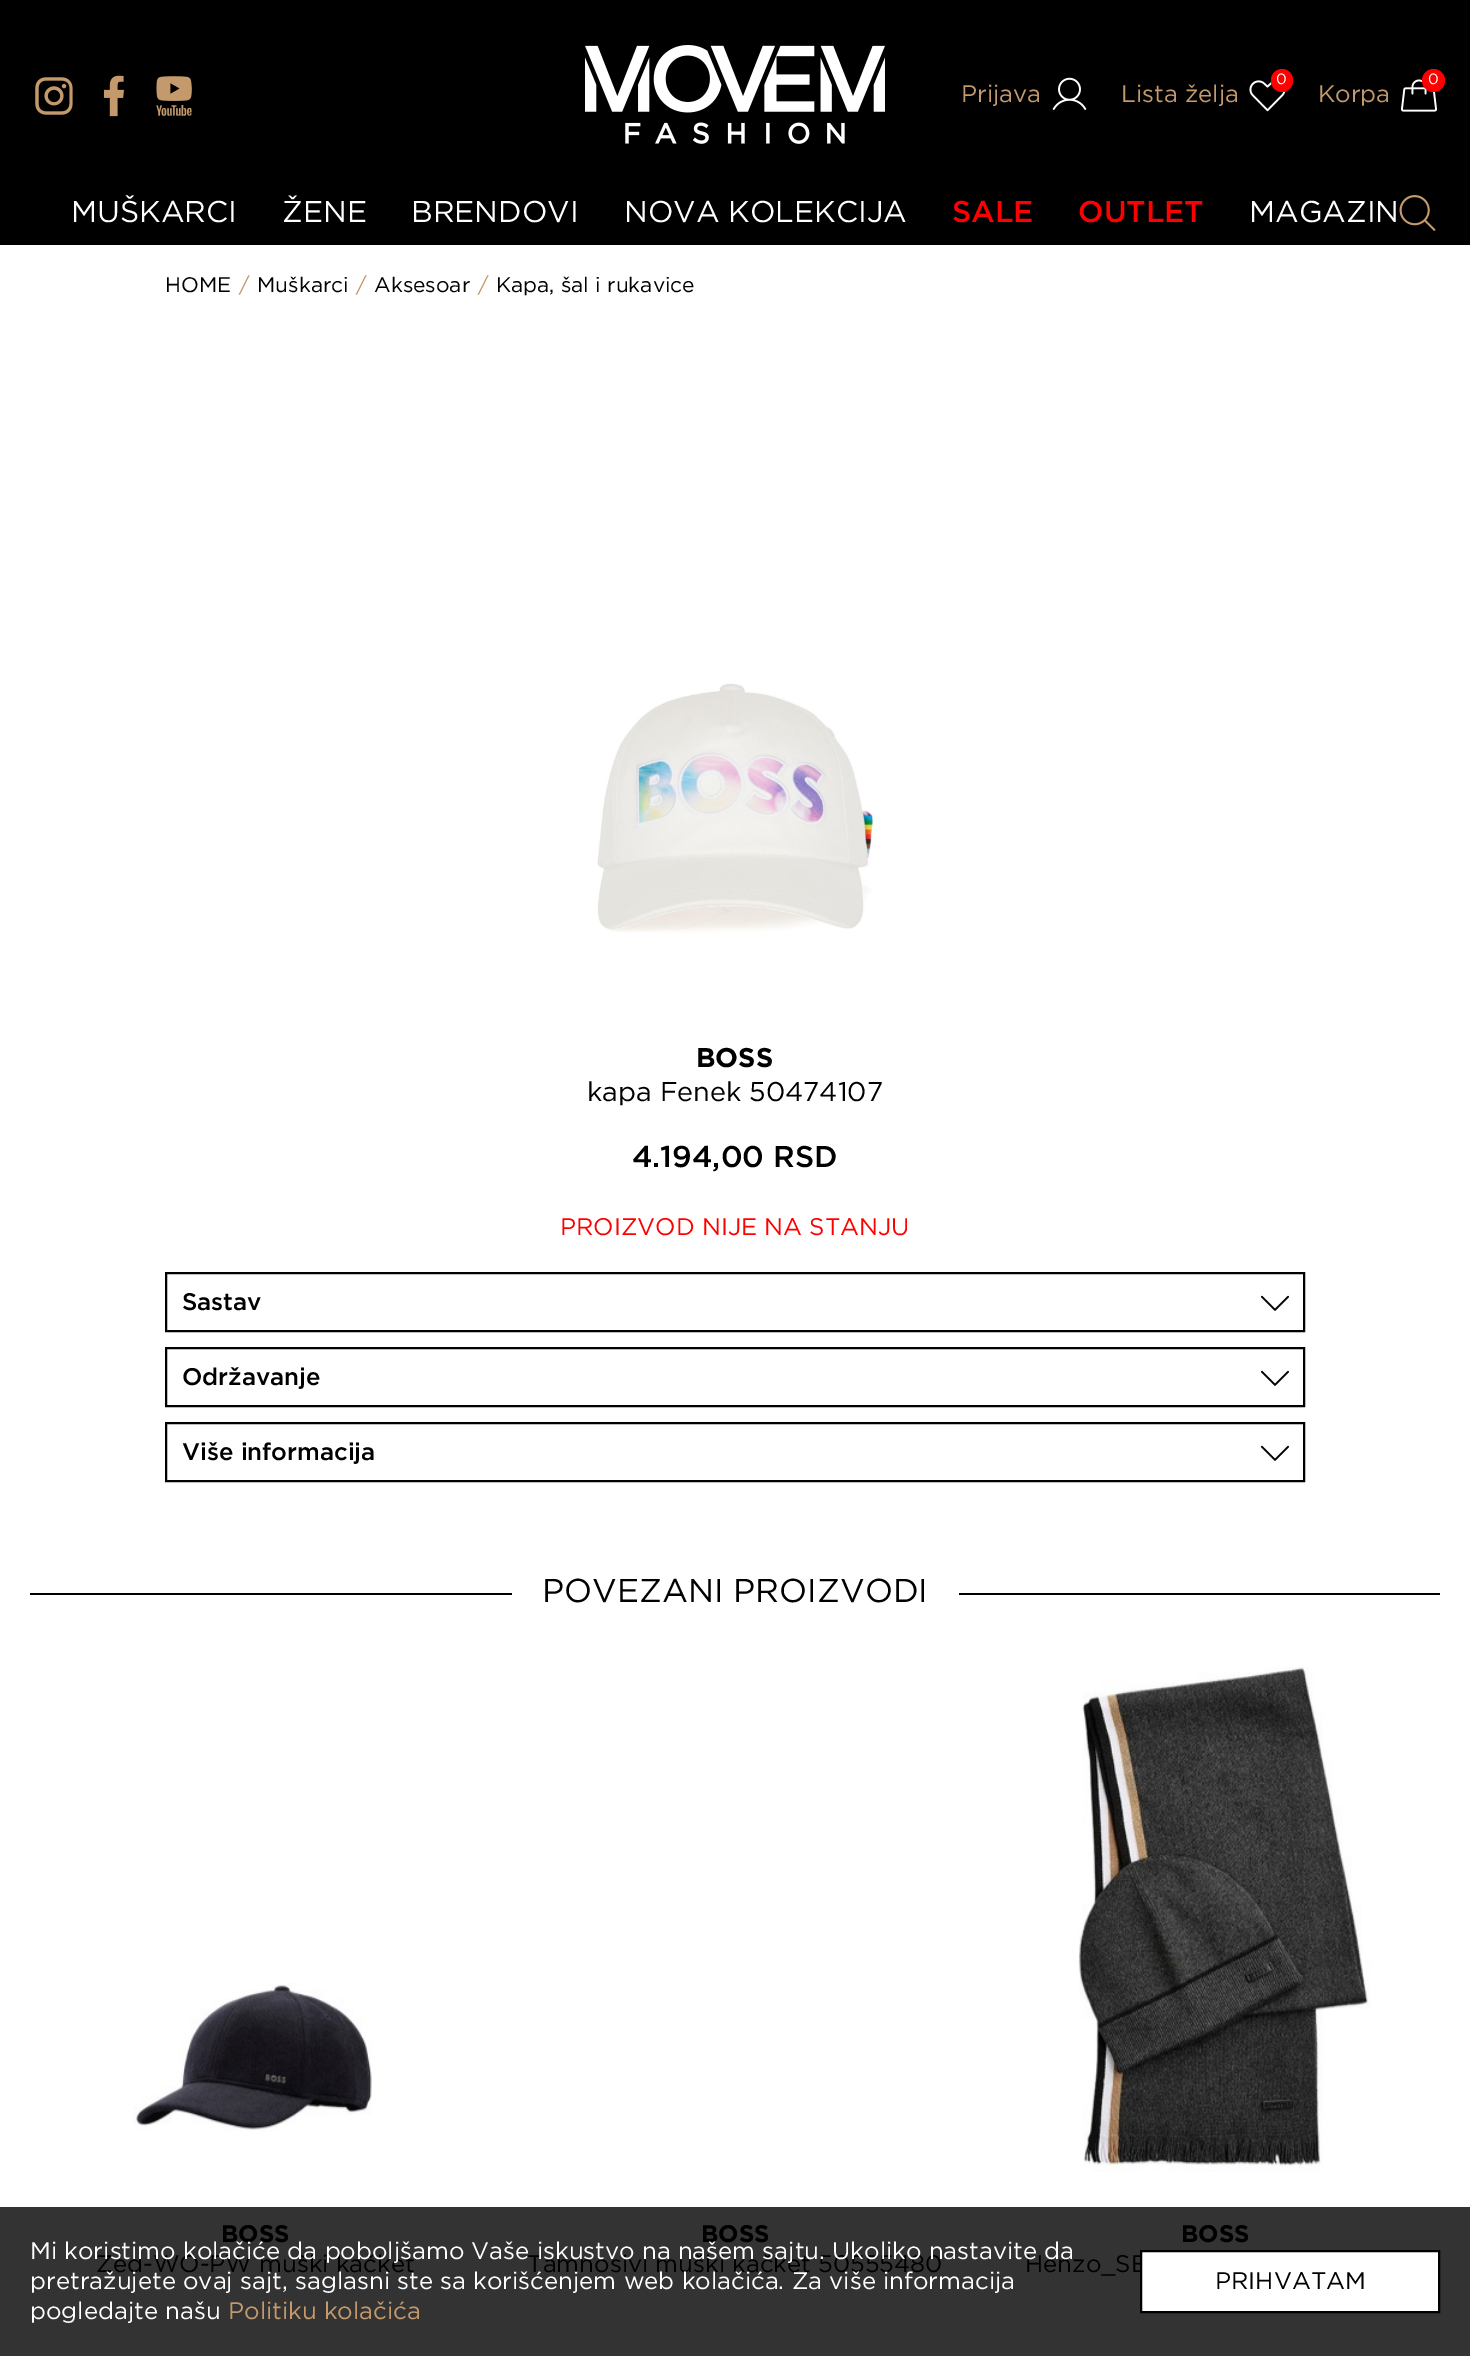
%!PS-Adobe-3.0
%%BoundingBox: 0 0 1470 2356
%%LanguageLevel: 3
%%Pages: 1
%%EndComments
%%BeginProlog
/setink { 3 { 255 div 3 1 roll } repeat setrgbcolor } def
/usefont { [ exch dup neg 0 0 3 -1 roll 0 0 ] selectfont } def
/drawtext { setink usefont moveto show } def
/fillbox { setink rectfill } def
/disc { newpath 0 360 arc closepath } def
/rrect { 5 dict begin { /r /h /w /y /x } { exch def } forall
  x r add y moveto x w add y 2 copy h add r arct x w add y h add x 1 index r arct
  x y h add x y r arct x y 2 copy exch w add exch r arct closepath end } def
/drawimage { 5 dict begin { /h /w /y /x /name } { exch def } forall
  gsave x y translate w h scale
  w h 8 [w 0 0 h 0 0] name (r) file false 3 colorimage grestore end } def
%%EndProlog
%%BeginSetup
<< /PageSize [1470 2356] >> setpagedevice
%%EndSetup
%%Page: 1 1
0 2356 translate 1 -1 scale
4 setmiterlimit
0 0 1470 2356 255 255 255 fillbox
0 2207 1470 149 51 51 51 fillbox
0 0 1470 245 0 0 0 fillbox
(assets/img1.rgb) 35 77 38 38 drawimage
(assets/img2.rgb) 103 75 21 42 drawimage
(assets/img3.rgb) 156 76 36 40 drawimage
(assets/img4.rgb) 585 45 300 99 drawimage
(Prijava) 961 102 /Gotham-Regular 24 196 154 108 drawtext
(assets/img5.rgb) 1052 77 35 33 drawimage
(assets/img6.rgb) 1249 80 37 32 drawimage
255 0 0 setink
1271 69 22 23 11 rrect fill
(0) 1276 84 /Gotham-Regular 15 255 255 255 drawtext
(Lista želja) 1121 102 /Gotham-Regular 24 196 154 108 drawtext
(assets/img7.rgb) 1401 79 36 33 drawimage
255 0 0 setink
1433.5 80.5 11.5 disc fill
(0) 1428 84 /Gotham-Regular 15 255 255 255 drawtext
(Korpa) 1318 102 /Gotham-Regular 24 196 154 108 drawtext
(MUŠKARCI) 71 222 /Gotham-Regular 30 255 255 255 drawtext
(ŽENE) 282 222 /Gotham-Regular 30 255 255 255 drawtext
(BRENDOVI) 411 222 /Gotham-Regular 30 255 255 255 drawtext
(NOVA KOLEKCIJA) 624 222 /Gotham-Regular 30 255 255 255 drawtext
(SALE) 952 222 /Gotham-Medium 30 255 0 0 drawtext
(OUTLET) 1078 222 /Gotham-Medium 30 255 0 0 drawtext
(MAGAZIN) 1249 222 /Gotham-Regular 30 255 255 255 drawtext
(assets/img8.rgb) 1399 195 37 36 drawimage
(HOME) 165 292 /Gotham-Regular 21 0 0 0 drawtext
(/) 239 292 /Gotham-Regular 21 196 154 108 drawtext
(Muškarci) 257 292 /Gotham-Regular 21 0 0 0 drawtext
(/) 356 292 /Gotham-Regular 21 196 154 108 drawtext
(Aksesoar) 374 292 /Gotham-Regular 21 0 0 0 drawtext
(/) 478 292 /Gotham-Regular 21 196 154 108 drawtext
(Kapa, šal i rukavice) 496 292 /Gotham-Regular 21 0 0 0 drawtext
(assets/img9.rgb) 597 683 278 250 drawimage
(BOSS) 696 1067 /Gotham-Bold 27 0 0 0 drawtext
(kapa Fenek 50474107) 587 1101 /Gotham-Regular 27 0 0 0 drawtext
(4.194,00 RSD) 632 1167 /Gotham-Medium 30 0 0 0 drawtext
(PROIZVOD NIJE NA STANJU) 560 1235 /Gotham-Regular 24 255 0 0 drawtext
0 0 0 setink
2 setlinewidth
166 1273 1138 58 rectstroke
(Sastav) 182 1310 /Gotham-Medium 24 0 0 0 drawtext
(assets/img10.rgb) 1260 1295 29 16 drawimage
166 1348 1138 58 rectstroke
(Održavanje) 182 1385 /Gotham-Medium 24 0 0 0 drawtext
(assets/img10.rgb) 1260 1370 29 16 drawimage
166 1423 1138 58 rectstroke
(Više informacija) 182 1460 /Gotham-Medium 24 0 0 0 drawtext
(assets/img10.rgb) 1260 1445 29 16 drawimage
30 1593 482 2 0 0 0 fillbox
(POVEZANI PROIZVODI) 542 1602 /Gotham-Regular 33 0 0 0 drawtext
959 1593 481 2 0 0 0 fillbox
(assets/img11.rgb) 133 1983 239 148 drawimage
(BOSS) 221 2242 /Gotham-Bold 24 0 0 0 drawtext
(Zed-WO-PW muški kačket) 96 2272 /Gotham-Regular 24 0 0 0 drawtext
(BOSS) 701 2242 /Gotham-Bold 24 0 0 0 drawtext
(Tamnosivi muški kačket 50555480) 527 2272 /Gotham-Regular 24 0 0 0 drawtext
(assets/img12.rgb) 1078 1667 293 505 drawimage
(BOSS) 1181 2242 /Gotham-Bold 24 0 0 0 drawtext
(Henzo_SE) 1025 2272 /Gotham-Regular 24 0 0 0 drawtext
(Mi koristimo kolačiće da poboljšamo Vaše iskustvo na našem sajtu. Ukoliko nastavite da) 30 2259 /Gotham-Regular 24 255 255 255 drawtext
(pretražujete ovaj sajt, saglasni ste sa korišćenjem web kolačića. Za više informacija) 30 2289 /Gotham-Regular 24 255 255 255 drawtext
(pogledajte našu) 30 2319 /Gotham-Regular 24 255 255 255 drawtext
(Politiku kolačića) 228 2319 /Gotham-Regular 24 196 154 108 drawtext
255 255 255 setink
1141 2251 moveto 1439 2251 lineto 1439 2312 lineto 1141 2312 lineto closepath gsave fill grestore
0 0 0 setink
stroke
(PRIHVATAM) 1215 2289 /Gotham-Regular 24 0 0 0 drawtext
showpage
%%EOF
